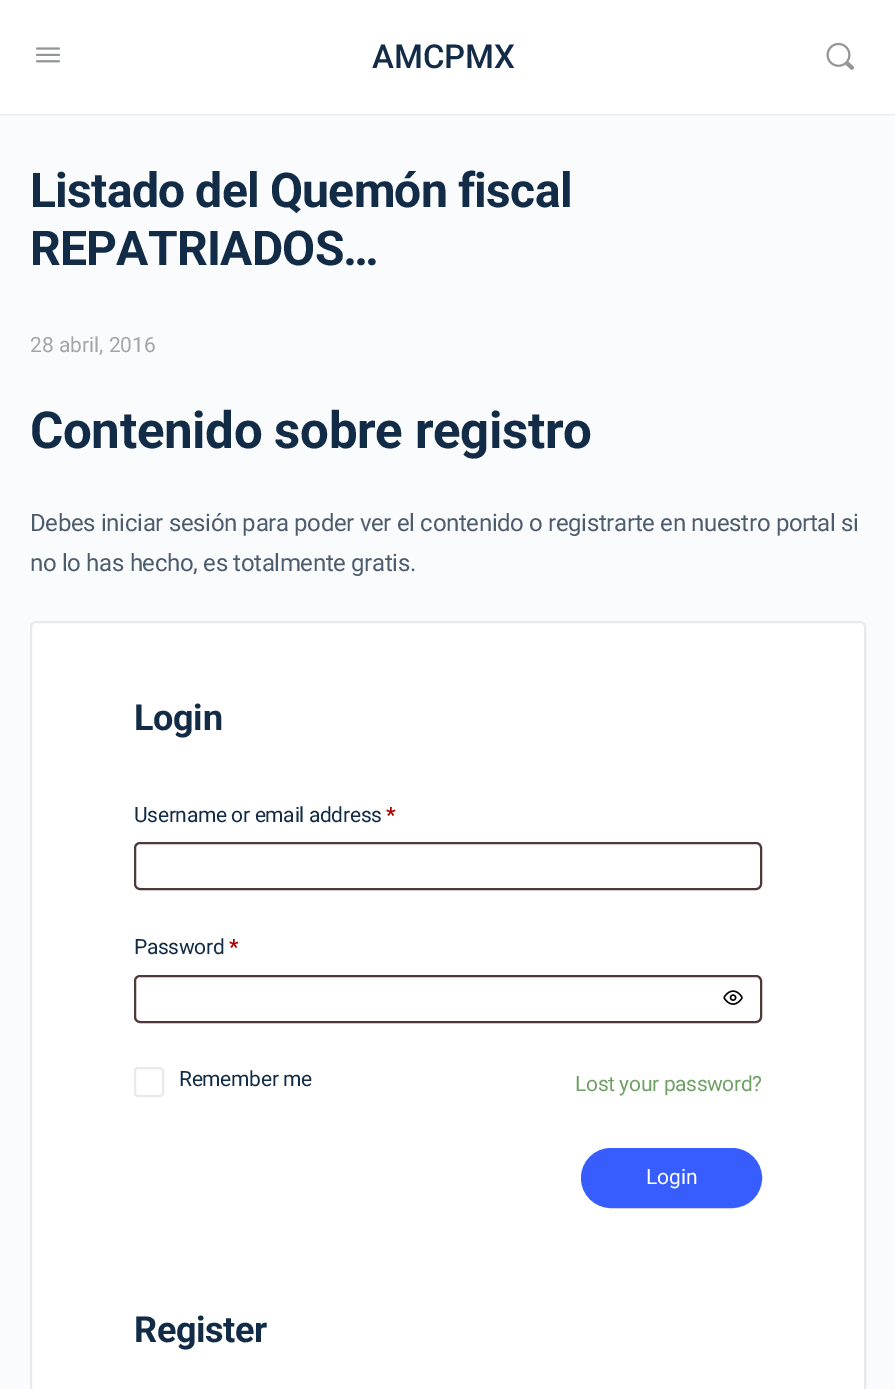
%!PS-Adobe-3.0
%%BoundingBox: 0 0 895 1389
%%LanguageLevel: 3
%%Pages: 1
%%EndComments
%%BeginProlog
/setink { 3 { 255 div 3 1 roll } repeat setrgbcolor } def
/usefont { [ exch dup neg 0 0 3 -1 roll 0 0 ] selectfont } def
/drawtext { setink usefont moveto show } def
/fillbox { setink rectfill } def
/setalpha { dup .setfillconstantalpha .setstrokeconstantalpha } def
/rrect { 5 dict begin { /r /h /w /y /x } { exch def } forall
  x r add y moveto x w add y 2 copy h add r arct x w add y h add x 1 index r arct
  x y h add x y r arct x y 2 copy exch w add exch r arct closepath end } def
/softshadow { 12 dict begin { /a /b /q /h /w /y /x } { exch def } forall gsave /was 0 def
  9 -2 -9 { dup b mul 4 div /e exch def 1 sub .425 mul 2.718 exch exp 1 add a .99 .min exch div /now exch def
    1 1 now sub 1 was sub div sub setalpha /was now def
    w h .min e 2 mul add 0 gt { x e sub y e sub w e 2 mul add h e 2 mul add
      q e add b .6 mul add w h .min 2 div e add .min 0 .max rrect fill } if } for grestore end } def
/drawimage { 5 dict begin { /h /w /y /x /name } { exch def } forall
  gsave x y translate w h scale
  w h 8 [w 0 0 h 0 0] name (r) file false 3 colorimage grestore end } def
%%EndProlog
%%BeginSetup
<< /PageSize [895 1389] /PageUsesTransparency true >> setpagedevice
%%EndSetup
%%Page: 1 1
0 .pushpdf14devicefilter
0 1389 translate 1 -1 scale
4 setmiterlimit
0 0 895 1389 250 251 253 fillbox
65 71 108 setink
0 0 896 114 0 1 0.15 softshadow
0.05 setalpha
139 141 157 setink
0 114 moveto 0 116 lineto 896 116 lineto 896 2 lineto 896 114 lineto closepath fill
1 setalpha
0 0 895 114 255 255 255 fillbox
(assets/img1.rgb) 36 47 24 16 drawimage
(AMCPMX) 372 68 /Roboto-Medium 33 18 43 70 drawtext
(assets/img2.rgb) 826 42 28 28 drawimage
/Roboto-Bold 48 usefont
30 207 moveto -0.75 0 (Listado del Quemón fiscal) ashow
30 265 moveto -0.75 0 (REPATRIADOS…) ashow
(28 abril, 2016) 30 352 /Roboto-Regular 21 163 165 169 drawtext
/Roboto-Bold 51 usefont
18 43 70 setink
30 448 moveto -0.35 0 (Contenido sobre registro) ashow
/Roboto-Regular 24 usefont
77 92 109 setink
30 531 moveto -0.35 0 (Debes iniciar sesión para poder ver el contenido o registrarte en nuestro portal si) ashow
30 571 moveto -0.35 0 (no lo has hecho, es totalmente gratis.) ashow
255 255 255 setink
31 622 834 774 5 rrect gsave fill grestore
231 233 236 setink
2 setlinewidth
stroke
/Roboto-Bold 36 usefont
18 43 70 setink
134 730 moveto -0.35 0 (Login) ashow
/Roboto-Regular 21 usefont
134 822 moveto -0.35 0 (Username or email address) ashow
/Roboto-Bold 21 usefont
170 0 0 setink
386 822 moveto -0.35 0 (*) ashow
77 57 57 setink
135 843 626 46 5 rrect stroke
/Roboto-Regular 21 usefont
18 43 70 setink
134 954 moveto -0.35 0 (Password) ashow
/Roboto-Bold 21 usefont
170 0 0 setink
229 954 moveto -0.35 0 (*) ashow
77 57 57 setink
135 976 626 46 5 rrect stroke
(assets/img3.rgb) 723 990 20 15 drawimage
231 233 236 setink
135 1068 28 28 3 rrect stroke
/Roboto-Regular 21 usefont
18 43 70 setink
179 1086 moveto -0.35 0 (Remember me) ashow
111 161 101 setink
575 1091 moveto -0.35 0 (Lost your password?) ashow
56 93 255 setink
582 1149 179 58 29 rrect gsave fill grestore
stroke
(Login) 646 1184 /Roboto-Regular 21 255 255 255 drawtext
/Roboto-Bold 36 usefont
18 43 70 setink
134 1342 moveto -0.35 0 (Register) ashow
.poppdf14devicefilter showpage
%%EOF
